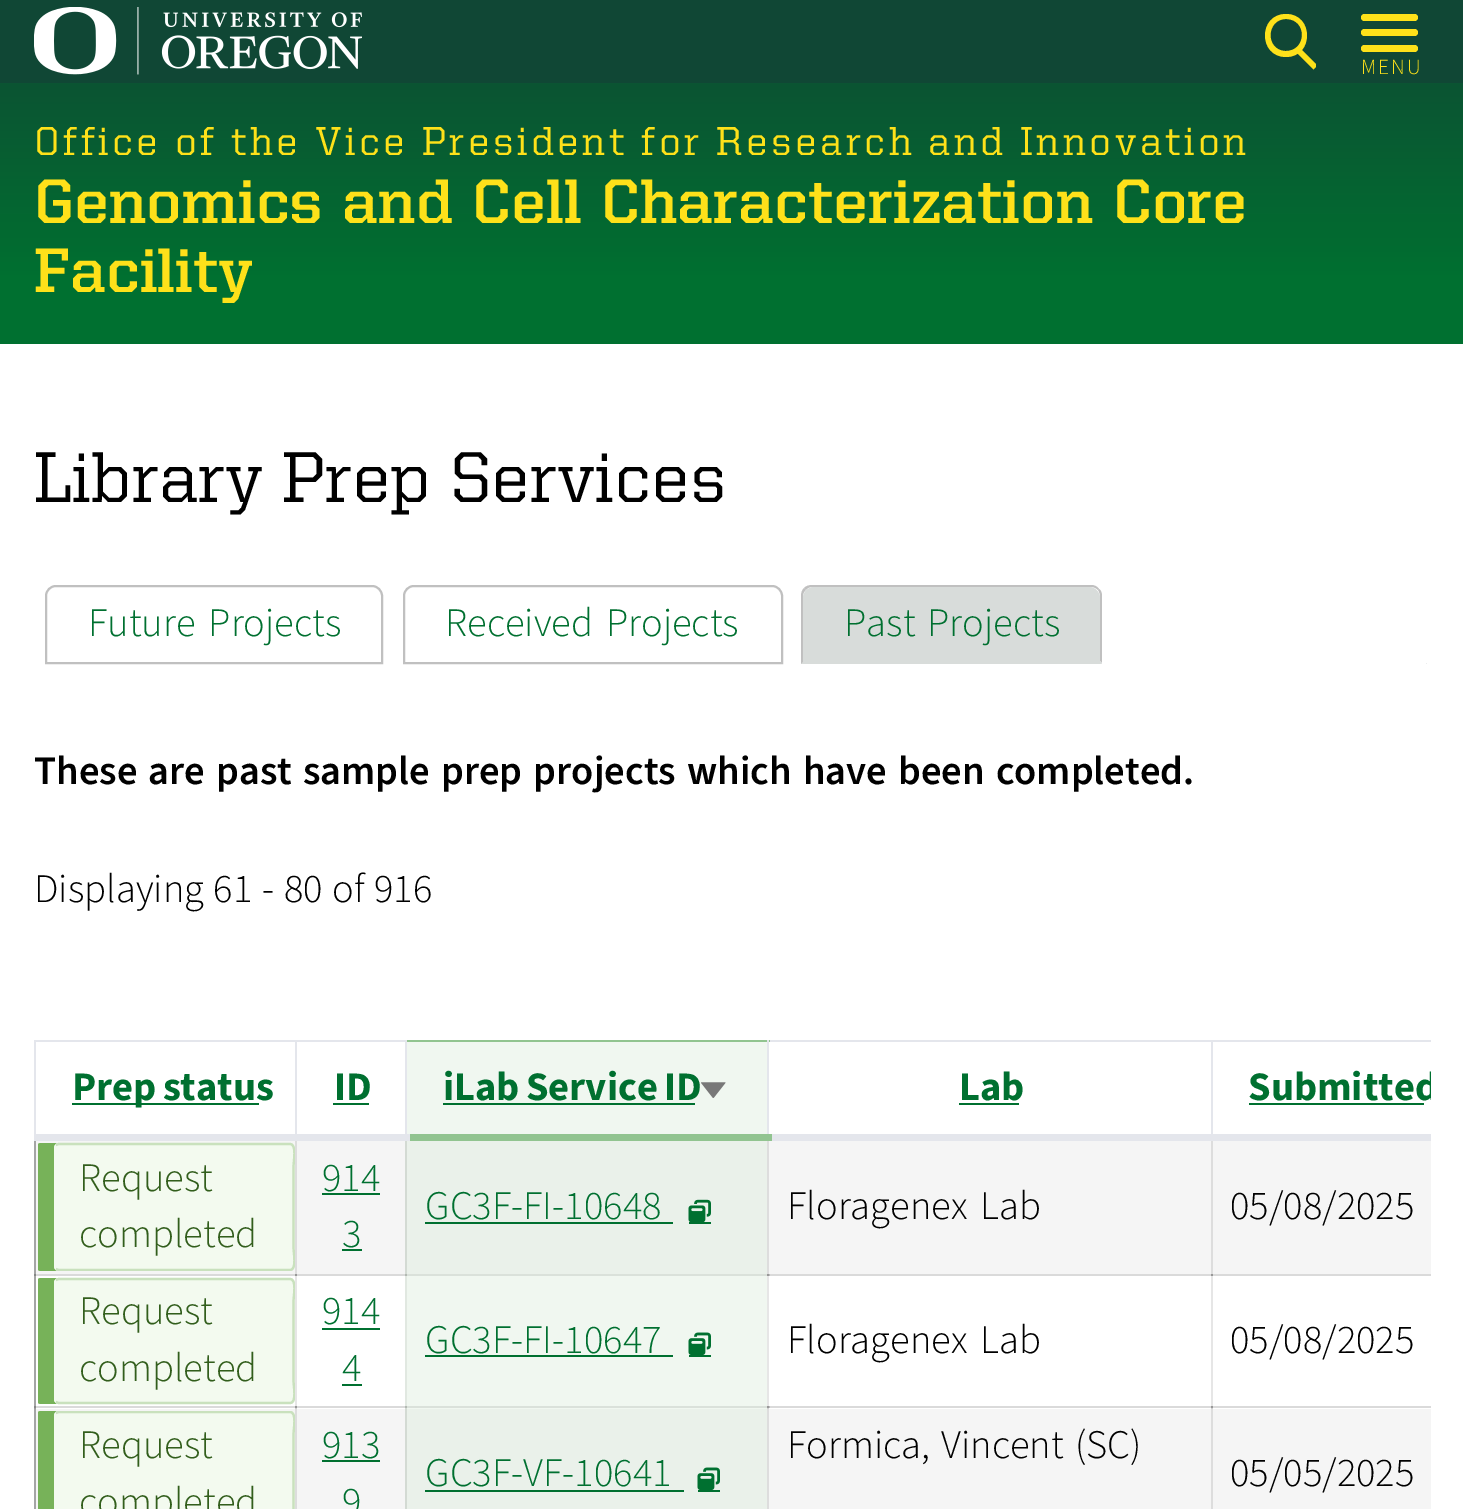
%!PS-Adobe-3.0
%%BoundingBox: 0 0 1463 1509
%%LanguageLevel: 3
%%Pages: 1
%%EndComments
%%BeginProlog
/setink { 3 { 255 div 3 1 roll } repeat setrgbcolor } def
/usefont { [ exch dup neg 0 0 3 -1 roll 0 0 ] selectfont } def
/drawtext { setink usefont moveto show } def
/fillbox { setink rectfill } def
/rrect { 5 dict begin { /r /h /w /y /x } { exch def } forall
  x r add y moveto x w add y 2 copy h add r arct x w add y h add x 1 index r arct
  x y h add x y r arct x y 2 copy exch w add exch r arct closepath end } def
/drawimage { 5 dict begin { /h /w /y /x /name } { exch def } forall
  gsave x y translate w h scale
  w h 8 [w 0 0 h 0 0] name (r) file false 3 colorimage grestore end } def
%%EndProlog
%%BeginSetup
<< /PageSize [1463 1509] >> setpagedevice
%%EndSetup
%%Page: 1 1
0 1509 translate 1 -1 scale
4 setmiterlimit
0 0 1463 1509 16 71 53 fillbox
(assets/img1.rgb) 34 7 328 68 drawimage
254 225 26 setink
1286 57 moveto 1258 57 1258 14 1286 14 curveto 1314 14 1314 57 1286 57 curveto closepath 1286 19 moveto 1266 19 1265 50 1285 51 curveto 1307 52 1308 19 1286 19 curveto closepath fill
gsave
1265 14 51 56 rectclip
1295 51 moveto 1299 47 lineto 1317.5 65.5 lineto 1313.5 69.5 lineto closepath fill
grestore
1361 14 57 7 3.5 rrect fill
1361 29 57 7 3.5 rrect fill
1361 45 57 7 3.5 rrect fill
/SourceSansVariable-Light 21.5 usefont
1361 74 moveto 2 0 (MENU) ashow
0 344 1463 1165 255 255 255 fillbox
407 1276 360 133 240 247 240 fillbox
34 1274 263 2 218 218 218 fillbox
295 1274 2 135 230 230 230 fillbox
295 1274 112 2 218 218 218 fillbox
295 1274 2 2 152 152 152 fillbox
405 1274 2 135 225 232 225 fillbox
405 1274 362 2 218 225 218 fillbox
405 1274 2 2 178 185 178 fillbox
767 1274 2 135 230 230 230 fillbox
767 1274 446 2 218 218 218 fillbox
767 1274 3 2 186 186 186 fillbox
767 1274 2 2 152 152 152 fillbox
1211 1274 2 135 230 230 230 fillbox
34 1406 263 2 218 218 218 fillbox
295 1406 2 3 208 208 208 fillbox
295 1406 112 2 218 218 218 fillbox
295 1406 2 2 152 152 152 fillbox
405 1406 2 3 212 219 212 fillbox
405 1406 362 2 218 225 218 fillbox
405 1406 2 2 178 185 178 fillbox
767 1406 2 3 208 208 208 fillbox
767 1406 446 2 218 218 218 fillbox
767 1406 3 2 186 186 186 fillbox
767 1406 2 2 152 152 152 fillbox
1211 1406 2 3 208 208 208 fillbox
gsave 0 83 moveto 1463 83 lineto 1463 344 lineto 0 344 lineto closepath clip newpath
<< /ShadingType 2 /ColorSpace /DeviceRGB /Coords [732 344 732 -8] /Extend [true true] /Function << /FunctionType 3 /Domain [0 1] /Functions [<< /FunctionType 2 /Domain [0 1] /C0 [0 0.439 0.188] /C1 [0 0.439 0.188] /N 1 >> << /FunctionType 2 /Domain [0 1] /C0 [0 0.439 0.188] /C1 [0.063 0.278 0.208] /N 1 >>] /Bounds [0.19] /Encode [0 1 0 1] >> >> shfill grestore
/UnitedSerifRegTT-Medium 40.5 usefont
254 225 26 setink
34 155 moveto 3.38 0 (Office of the Vice President for Research and Innovation) ashow
(Genomics and Cell Characterization Core) 34 223 /UnitedSerifRegTT-Bold 63 254 225 26 drawtext
(Facility) 34 292 /UnitedSerifRegTT-Bold 63 254 225 26 drawtext
(Library Prep Services) 34 502 /UnitedSerifRegTT-Medium 72 0 0 0 drawtext
gsave
38 585 1389 79 rectclip
162 170 173 setink
-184 362 moveto 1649 362 lineto 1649 886 lineto -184 886 lineto closepath 38 580 moveto 1426 580 lineto 1428 580 1429 582 1429 583 curveto 1429 662 lineto 1429 663 1428 664 1426 664 curveto 38 664 lineto 37 664 36 663 36 662 curveto 36 583 lineto 36 582 37 580 38 580 curveto closepath eofill
grestore
192 192 192 setink
2 setlinewidth
56 586 moveto 372 586 lineto 377.5 586 382 590.5 382 596 curveto 382 663 lineto 46 663 lineto 46 596 lineto 46 590.5 50.5 586 56 586 curveto closepath stroke
/SourceSansVariable-Light 40.5 usefont
0 112 48 setink
88 636 moveto 5 0 32 (Future Projects) widthshow
192 192 192 setink
414 586 moveto 772 586 lineto 777.5 586 782 590.5 782 596 curveto 782 663 lineto 404 663 lineto 404 596 lineto 404 590.5 408.5 586 414 586 curveto closepath stroke
0 112 48 setink
445 636 moveto 5 0 32 (Received Projects) widthshow
192 192 192 setink
812 585 moveto 809 585 806 586 804 588 curveto 806 590 lineto 807 588 810 587 812 587 curveto 1091 587 lineto 1094 587 1096 588 1098 590 curveto 1099 589 lineto 1097 586 1094 585 1091 585 curveto closepath fill
1099 589 moveto 1101 590 1102 593 1102 596 curveto 1102 663 lineto 1100 661 lineto 1100 596 lineto 1100 594 1099 591 1098 590 curveto closepath fill
216 220 218 setink
1102 664 moveto 801 664 lineto 803 662 lineto 1100 662 lineto 1100 661 lineto closepath fill
192 192 192 setink
801 664 moveto 803 662 lineto 803 596 lineto 803 594 804 591 806 590 curveto 804 588 lineto 802 590 801 593 801 596 curveto closepath fill
216 220 218 setink
814 587 moveto 1089 587 lineto 1095 587 1100 592 1100 598 curveto 1100 662 lineto 803 662 lineto 803 598 lineto 803 592 808 587 814 587 curveto closepath fill
0 112 48 setink
844 636 moveto 4 0 32 (Past Projects) widthshow
/SourceSansVariable-SemiBold 40.5 usefont
0 0 0 setink
34 784 moveto 3 0 32 (These are past sample prep projects which have been completed.) widthshow
/SourceSansVariable-Light 40.5 usefont
34 902 moveto 1.5 0 32 (Displaying 61 - 80 of 916) widthshow
34 1136 2 373 164 165 165 fillbox
34 1274 2 2 133 134 134 fillbox
34 1406 2 3 156 157 157 fillbox
34 1406 2 2 133 134 134 fillbox
1211 1040 220 2 228 230 236 fillbox
1211 1040 2 99 228 230 236 fillbox
767 1040 446 2 228 230 236 fillbox
405 1040 365 2 145 196 144 fillbox
405 1040 2 99 228 230 236 fillbox
295 1040 112 2 228 230 236 fillbox
295 1040 2 99 228 230 236 fillbox
34 1040 263 2 228 230 236 fillbox
34 1040 2 99 228 230 236 fillbox
72 1103 187 2 0 112 48 fillbox
/SourceSansVariable-Bold 40.5 usefont
72 1100 moveto -2 0 32 (Prep status) widthshow
767 1040 2 99 228 230 236 fillbox
36 1141 1395 133 245 245 245 fillbox
767 1139 2 135 221 221 221 fillbox
1211 1139 2 135 221 221 221 fillbox
765 1134 666 7 228 230 236 fillbox
405 1139 2 135 211 218 211 fillbox
403 1134 369 7 145 196 144 fillbox
295 1139 2 135 221 221 221 fillbox
34 1134 376 7 228 230 236 fillbox
(ID) 334 1100 /SourceSansVariable-Bold 40.5 0 112 48 drawtext
333 1103 36 2 0 112 48 fillbox
407 1042 360 92 240 247 240 fillbox
0 112 48 setink
443 1100 moveto -2 0 32 (iLab Service ID) widthshow
443 1103 252 2 0 112 48 fillbox
(assets/img2.rgb) 701 1082 25 16 drawimage
(Lab) 959 1100 /SourceSansVariable-Bold 40.5 0 112 48 drawtext
959 1103 60 2 0 112 48 fillbox
gsave
34 979 1397 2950 rectclip
(Submitted) 1248 1100 /SourceSansVariable-Bold 40.5 0 112 48 drawtext
grestore
1249 1103 175 2 0 112 48 fillbox
gsave
38 1141 257 130 rectclip
119 178 89 setink
41 1143 moveto 38 1143 36 1145 36 1148 curveto 36 1266 lineto 36 1269 38 1271 41 1271 curveto 57 1271 lineto 55 1270 54 1269 54 1267 curveto 54 1148 lineto 54 1145 56 1143 58 1143 curveto closepath fill
grestore
243 250 239 setink
54 1143 241 128 5 rrect fill
gsave
38 1141 257 130 rectclip
201 225 189 setink
2.2 setlinewidth
56 1145 moveto 58.5 1144 lineto 290 1144 lineto 297 1144 293.5 1161 293.5 1167.5 curveto 293.5 1247 lineto 293.5 1253 297 1270 290 1270 curveto 58.5 1270 lineto 56 1269 lineto stroke
grestore
(Request) 79 1191 /SourceSansVariable-Light 40.5 50 94 28 drawtext
(completed) 79 1247 /SourceSansVariable-Light 40.5 50 94 28 drawtext
(914) 322 1191 /SourceSansVariable-Light 40.5 0 112 48 drawtext
322 1193 58 2 0 112 48 fillbox
(3) 342 1247 /SourceSansVariable-Light 40.5 0 112 48 drawtext
342 1249 20 2 0 112 48 fillbox
407 1141 360 133 234 241 234 fillbox
(GC3F-FI-10648) 425 1219 /SourceSansVariable-Light 40.5 0 112 48 drawtext
425 1222 248 2 0 112 48 fillbox
689 1222 22 2 0 112 48 fillbox
(assets/img3.rgb) 688 1199 23 23 drawimage
0 0 0 setink
787 1219 moveto 5 0 32 (Floragenex Lab) widthshow
(05/08/2025) 1230 1219 /SourceSansVariable-Light 40.5 0 0 0 drawtext
gsave
38 1276 257 130 rectclip
119 178 89 setink
41 1278 moveto 38 1278 36 1280 36 1283 curveto 36 1399 lineto 36 1402 38 1404 41 1404 curveto 58 1404 lineto 56 1404 54 1402 54 1400 curveto 54 1282 lineto 54 1280 56 1278 58 1278 curveto closepath fill
grestore
243 250 239 setink
54 1278 241 126 5 rrect fill
gsave
38 1276 257 130 rectclip
201 225 189 setink
2.2 setlinewidth
56 1280 moveto 58.5 1279 lineto 290 1279 lineto 297 1279 293.5 1295.5 293.5 1302 curveto 293.5 1380 lineto 293.5 1386.5 297 1403 290 1403 curveto 58.5 1403 lineto 56 1402 lineto stroke
grestore
(Request) 79 1324 /SourceSansVariable-Light 40.5 50 94 28 drawtext
(completed) 79 1381 /SourceSansVariable-Light 40.5 50 94 28 drawtext
(914) 322 1324 /SourceSansVariable-Light 40.5 0 112 48 drawtext
322 1328 58 2 0 112 48 fillbox
(4) 342 1381 /SourceSansVariable-Light 40.5 0 112 48 drawtext
342 1384 20 2 0 112 48 fillbox
(GC3F-FI-10647) 425 1353 /SourceSansVariable-Light 40.5 0 112 48 drawtext
425 1355 248 2 0 112 48 fillbox
689 1355 22 2 0 112 48 fillbox
(assets/img4.rgb) 688 1332 23 23 drawimage
0 0 0 setink
787 1353 moveto 5 0 32 (Floragenex Lab) widthshow
1211 1274 220 2 218 218 218 fillbox
1211 1274 2 2 152 152 152 fillbox
(05/08/2025) 1230 1353 /SourceSansVariable-Light 40.5 0 0 0 drawtext
36 1409 1395 100 245 245 245 fillbox
295 1409 2 100 221 221 221 fillbox
767 1409 2 100 221 221 221 fillbox
1211 1409 2 100 221 221 221 fillbox
gsave
38 1411 257 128 rectclip
119 178 89 setink
41 1411 moveto 38 1411 36 1413 36 1416 curveto 36 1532 lineto 36 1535 38 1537 41 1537 curveto 274 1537 lineto 58 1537 lineto 56 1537 54 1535 54 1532 curveto 54 1415 lineto 54 1413 55 1412 57 1411 curveto closepath fill
grestore
243 250 239 setink
54 1411 241 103 5 rrect fill
gsave
38 1411 257 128 rectclip
201 225 189 setink
2.2 setlinewidth
56 1413 moveto 58.5 1412 lineto 290 1412 lineto 297 1412 293.5 1428.5 293.5 1435 curveto 293.5 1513 lineto 293.5 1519 297 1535.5 290 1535.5 curveto 58.5 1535.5 lineto 56 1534.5 lineto stroke
grestore
(Request) 79 1458 /SourceSansVariable-Light 40.5 50 94 28 drawtext
(completed) 79 1515 /SourceSansVariable-Light 40.5 50 94 28 drawtext
(913) 322 1458 /SourceSansVariable-Light 40.5 0 112 48 drawtext
322 1460 58 2 0 112 48 fillbox
(9) 342 1515 /SourceSansVariable-Light 40.5 0 112 48 drawtext
407 1409 360 100 234 241 234 fillbox
405 1409 2 100 211 218 211 fillbox
(GC3F-VF-10641) 425 1486 /SourceSansVariable-Light 40.5 0 112 48 drawtext
425 1490 259 2 0 112 48 fillbox
698 1490 22 2 0 112 48 fillbox
(assets/img5.rgb) 697 1467 23 23 drawimage
0 0 0 setink
787 1458 moveto 3 0 32 (Formica, Vincent \(SC\)) widthshow
1211 1406 220 2 218 218 218 fillbox
1211 1406 2 2 152 152 152 fillbox
(05/05/2025) 1230 1486 /SourceSansVariable-Light 40.5 0 0 0 drawtext
showpage
%%EOF
